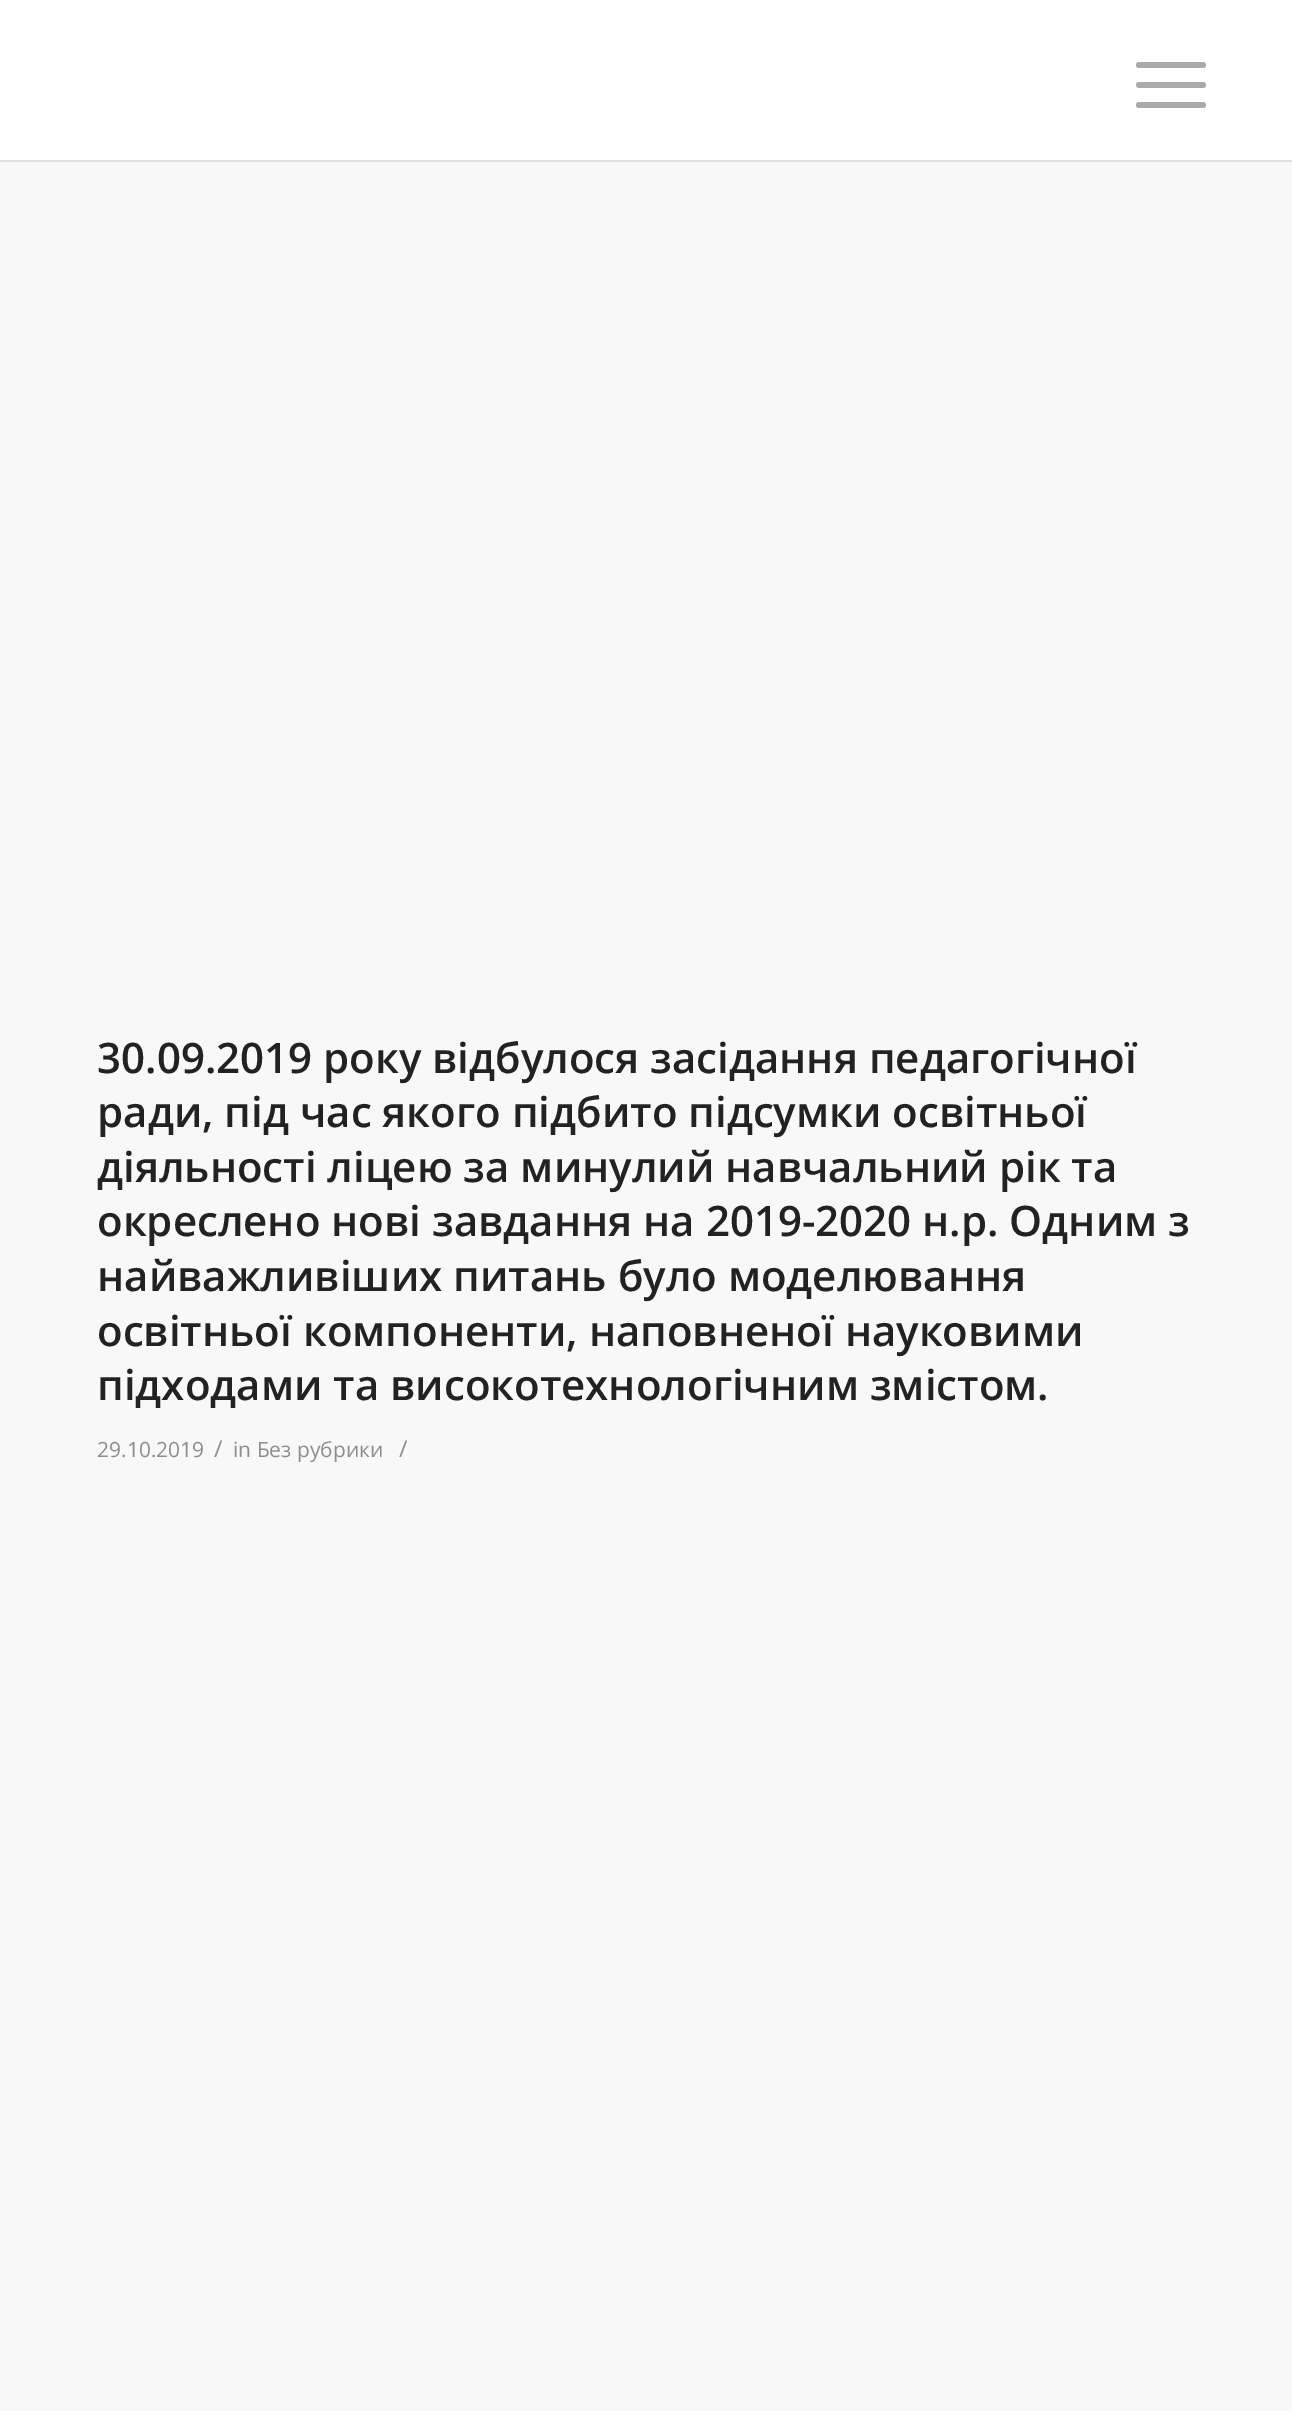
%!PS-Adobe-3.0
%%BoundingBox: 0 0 1292 2411
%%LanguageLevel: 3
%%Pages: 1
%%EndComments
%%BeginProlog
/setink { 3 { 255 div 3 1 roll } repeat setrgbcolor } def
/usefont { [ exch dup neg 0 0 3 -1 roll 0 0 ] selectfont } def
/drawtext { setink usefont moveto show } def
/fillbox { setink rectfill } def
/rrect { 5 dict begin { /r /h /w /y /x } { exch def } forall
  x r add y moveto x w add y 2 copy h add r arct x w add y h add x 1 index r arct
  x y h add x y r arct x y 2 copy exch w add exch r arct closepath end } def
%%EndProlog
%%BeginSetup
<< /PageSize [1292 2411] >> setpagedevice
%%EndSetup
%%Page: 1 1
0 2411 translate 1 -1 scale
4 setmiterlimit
0 0 1292 2411 255 255 255 fillbox
0 160 1292 2 225 225 225 fillbox
170 170 170 setink
1136 82 70 6 3 rrect fill
1136 62 70 6 3 rrect fill
1136 102 70 6 3 rrect fill
0 162 1292 2249 248 248 248 fillbox
(30.09.2019 року відбулося засідання педагогічної) 97 1073 /OpenSans-SemiBold 42 34 34 34 drawtext
(ради, під час якого підбито підсумки освітньої) 97 1127 /OpenSans-SemiBold 42 34 34 34 drawtext
(діяльності ліцею за минулий навчальний рік та) 97 1182 /OpenSans-SemiBold 42 34 34 34 drawtext
(окреслено нові завдання на 2019-2020 н.р. Одним з) 97 1236 /OpenSans-SemiBold 42 34 34 34 drawtext
(найважливіших питань було моделювання) 97 1291 /OpenSans-SemiBold 42 34 34 34 drawtext
(освітньої компоненти, наповненої науковими) 97 1346 /OpenSans-SemiBold 42 34 34 34 drawtext
(підходами та високотехнологічним змістом.) 97 1400 /OpenSans-SemiBold 42 34 34 34 drawtext
(29.10.2019) 97 1457 /OpenSans-Regular 21 141 141 141 drawtext
(/) 214 1457 /OpenSans-Regular 23 141 141 141 drawtext
(in Без рубрики) 233 1457 /OpenSans-Regular 21 141 141 141 drawtext
(/) 399 1457 /OpenSans-Regular 23 141 141 141 drawtext
showpage
%%EOF
